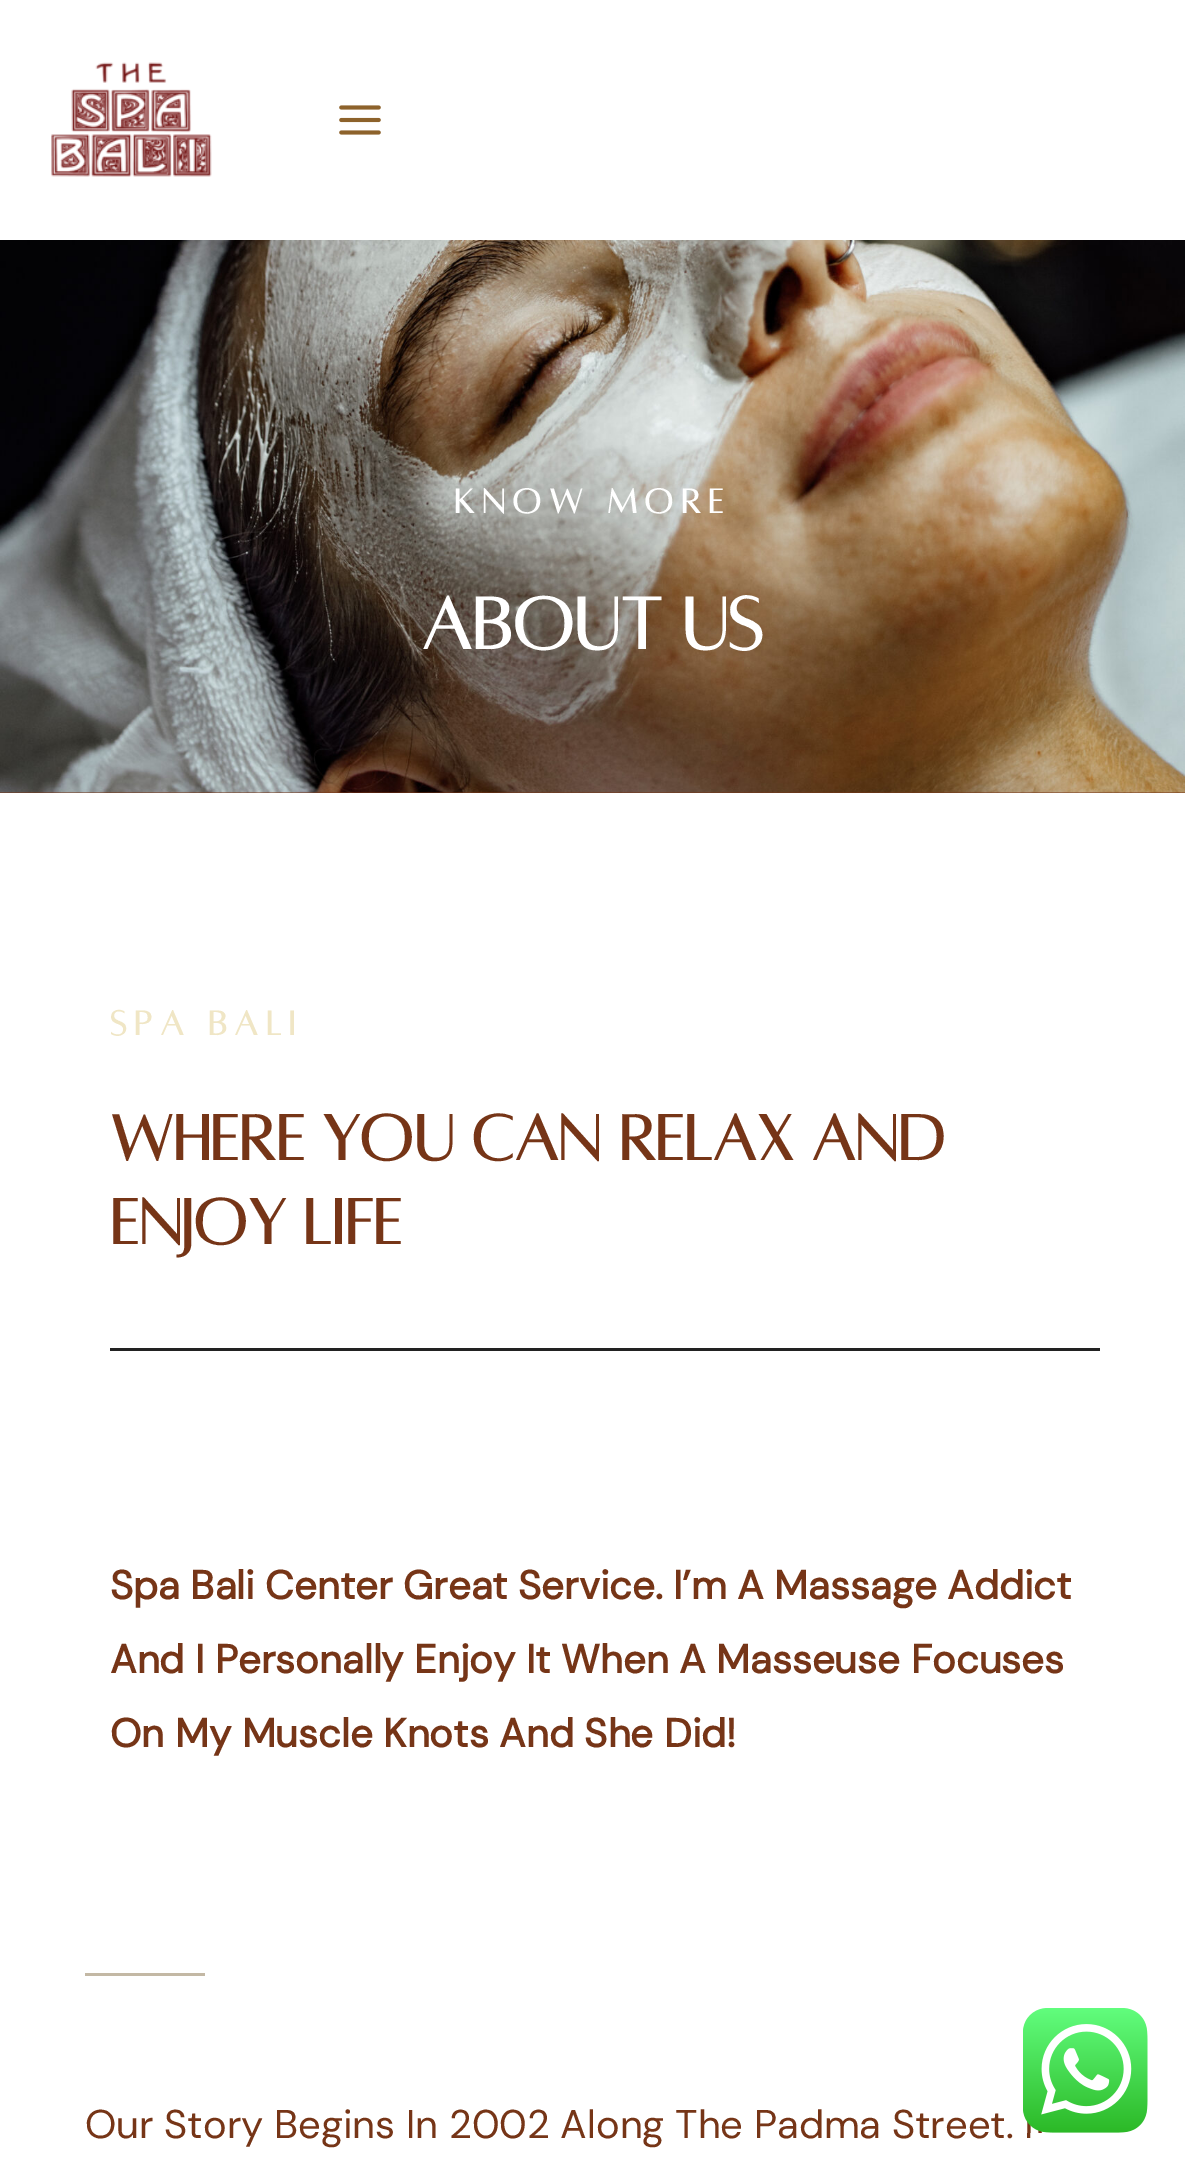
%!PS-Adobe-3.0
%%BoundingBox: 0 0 1185 2168
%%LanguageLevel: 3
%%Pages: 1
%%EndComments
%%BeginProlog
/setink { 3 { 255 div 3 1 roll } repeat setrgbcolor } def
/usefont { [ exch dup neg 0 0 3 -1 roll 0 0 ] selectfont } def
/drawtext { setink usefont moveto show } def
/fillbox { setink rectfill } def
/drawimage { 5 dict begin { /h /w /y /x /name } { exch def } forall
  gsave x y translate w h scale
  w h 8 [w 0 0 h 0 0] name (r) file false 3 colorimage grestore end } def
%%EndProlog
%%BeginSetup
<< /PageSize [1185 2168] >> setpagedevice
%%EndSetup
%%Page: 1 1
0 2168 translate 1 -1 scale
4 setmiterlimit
0 0 1185 2168 118 53 23 fillbox
0 0 1185 240 255 255 255 fillbox
(assets/img1.rgb) 51 62 161 115 drawimage
(assets/img2.rgb) 339 105 42 30 drawimage
(assets/img3.rgb) 0 240 1185 553 drawimage
/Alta-Bold 37.5 usefont
454 513 moveto 7.5 0 (KNOW MORE) ashow
(About Us) 421 649 /Alta-Bold 80 255 255 255 drawtext
0 793 1185 1375 255 255 255 fillbox
/Alta-Bold 37.5 usefont
240 230 197 setink
110 1035 moveto 7.5 0 (SPA BALI) ashow
(Where You Can Relax And) 110 1160 /Alta-Bold 70 118 53 23 drawtext
(Enjoy Life) 110 1244 /Alta-Bold 70 118 53 23 drawtext
110 1348 990 3 34 34 34 fillbox
(Spa Bali Center Great Service. I’m A Massage Addict) 110 1599 /DMSans-Bold 40 118 53 23 drawtext
(And I Personally Enjoy It When A Masseuse Focuses) 110 1673 /DMSans-Bold 40 118 53 23 drawtext
(On My Muscle Knots And She Did!) 110 1747 /DMSans-Bold 40 118 53 23 drawtext
85 1973 120 3 195 184 164 fillbox
(Our Story Begins In 2002 Along The Padma Street. I) 85 2138 /DMSans-Regular 40 118 53 23 drawtext
(assets/img4.rgb) 1023 2008 125 125 drawimage
showpage
%%EOF
